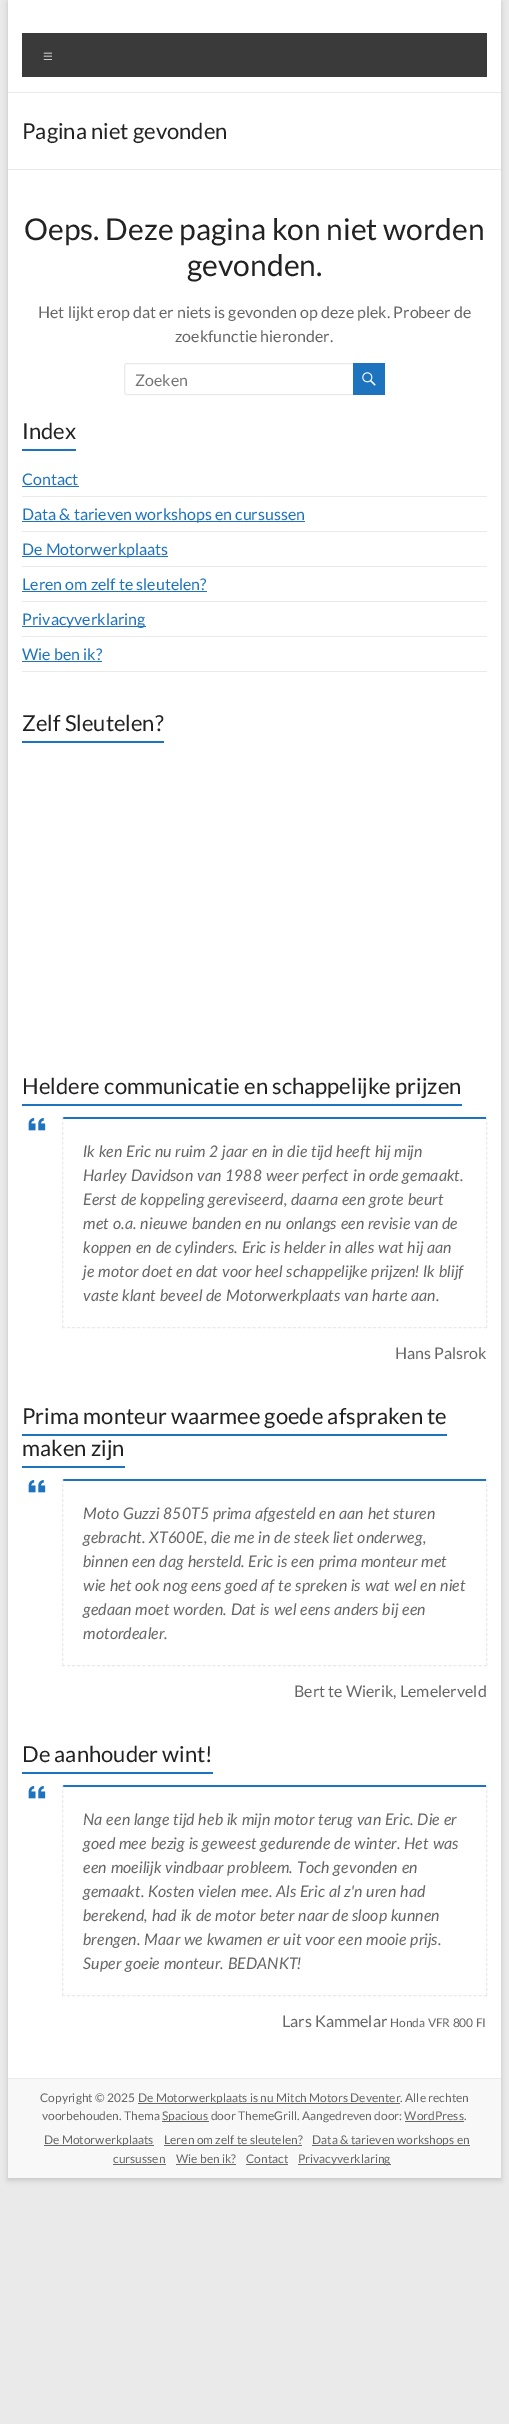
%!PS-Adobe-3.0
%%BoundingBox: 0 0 509 2424
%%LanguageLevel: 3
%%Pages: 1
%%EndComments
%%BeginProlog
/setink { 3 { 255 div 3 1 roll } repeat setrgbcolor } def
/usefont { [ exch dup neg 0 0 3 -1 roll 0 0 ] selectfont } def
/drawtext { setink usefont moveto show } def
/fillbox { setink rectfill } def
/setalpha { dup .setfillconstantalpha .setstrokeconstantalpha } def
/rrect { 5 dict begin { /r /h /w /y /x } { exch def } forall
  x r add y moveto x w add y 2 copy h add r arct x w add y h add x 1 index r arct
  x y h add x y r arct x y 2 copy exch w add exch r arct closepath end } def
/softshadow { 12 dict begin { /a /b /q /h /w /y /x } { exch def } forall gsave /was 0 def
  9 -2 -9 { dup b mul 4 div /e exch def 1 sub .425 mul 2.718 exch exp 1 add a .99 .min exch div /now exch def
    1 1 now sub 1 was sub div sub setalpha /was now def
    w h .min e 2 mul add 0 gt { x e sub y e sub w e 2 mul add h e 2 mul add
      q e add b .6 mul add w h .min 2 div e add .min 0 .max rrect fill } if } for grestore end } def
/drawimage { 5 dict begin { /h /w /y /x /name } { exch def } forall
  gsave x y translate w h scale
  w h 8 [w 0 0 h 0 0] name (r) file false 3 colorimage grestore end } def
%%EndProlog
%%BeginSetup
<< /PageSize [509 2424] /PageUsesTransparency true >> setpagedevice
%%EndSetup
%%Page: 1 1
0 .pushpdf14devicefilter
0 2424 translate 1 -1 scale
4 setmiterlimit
0 0 509 2424 234 234 234 fillbox
100 100 100 setink
8 2 493 2178 0 3 0.3 softshadow
8 0 493 2078 255 255 255 fillbox
8 92 493 1 234 234 234 fillbox
22 33 465 44 58 58 58 fillbox
(≡) 42 63 /Lato-Light 20 255 255 255 drawtext
8 169 493 1 234 234 234 fillbox
(Pagina niet gevonden) 22 139 /Lato-Regular 22 34 34 34 drawtext
(Oeps. Deze pagina kon niet worden) 24 240 /Lato-Regular 30 34 34 34 drawtext
(gevonden.) 187 276 /Lato-Regular 30 34 34 34 drawtext
(Het lijkt erop dat er niets is gevonden op deze plek. Probeer de) 38 318 /Lato-Regular 16 102 102 102 drawtext
(zoekfunctie hieronder.) 175 342 /Lato-Regular 16 102 102 102 drawtext
234 234 234 setink
124.5 363.5 231 31 2.5 rrect stroke
(Zoeken) 135 386 /Lato-Regular 16 117 117 117 drawtext
353 363 32 32 30 115 190 fillbox
(assets/img1.rgb) 362 372 14 14 drawimage
(Index) 22 439 /Lato-Regular 22 34 34 34 drawtext
22 449 54 2 30 115 190 fillbox
22 496 465 1 234 234 234 fillbox
(Contact) 22 485 /Lato-Regular 16 30 115 190 drawtext
22 486 57 1 30 115 190 fillbox
22 531 465 1 234 234 234 fillbox
22 521 283 1 30 115 190 fillbox
(Data & tarieven workshops en cursussen) 22 520 /Lato-Regular 16 30 115 190 drawtext
22 566 465 1 234 234 234 fillbox
22 556 146 1 30 115 190 fillbox
(De Motorwerkplaats) 22 555 /Lato-Regular 16 30 115 190 drawtext
22 601 465 1 234 234 234 fillbox
(Leren om zelf te sleutelen?) 22 590 /Lato-Regular 16 30 115 190 drawtext
22 591 185 1 30 115 190 fillbox
22 636 465 1 234 234 234 fillbox
22 626 124 1 30 115 190 fillbox
(Privacyverklaring) 22 625 /Lato-Regular 16 30 115 190 drawtext
22 671 465 1 234 234 234 fillbox
(Wie ben ik?) 22 660 /Lato-Regular 16 30 115 190 drawtext
22 661 80 1 30 115 190 fillbox
(Zelf Sleutelen?) 22 731 /Lato-Regular 22 34 34 34 drawtext
22 741 142 2 30 115 190 fillbox
(Heldere communicatie en schappelijke prijzen) 22 1094 /Lato-Regular 22 34 34 34 drawtext
22 1104 440 2 30 115 190 fillbox
(assets/img2.rgb) 28 1118 18 13 drawimage
62 1117 moveto 487 1117 lineto 486 1119 lineto 63 1119 lineto closepath fill
234 234 234 setink
[3 1.95] 0 setdash
486.5 1117 moveto 486.5 1328 lineto stroke
[3 2.02] 0 setdash
62 1327.5 moveto 487 1327.5 lineto stroke
[3 1.95] 0 setdash
62.5 1117 moveto 62.5 1328 lineto stroke
(Ik ken Eric nu ruim 2 jaar en in die tijd heeft hij mijn) 83 1157 /Lato-Italic 16 102 102 102 drawtext
(Harley Davidson van 1988 weer perfect in orde gemaakt.) 83 1181 /Lato-Italic 16 102 102 102 drawtext
(Eerst de koppeling gereviseerd, daarna een grote beurt) 83 1205 /Lato-Italic 16 102 102 102 drawtext
(met o.a. nieuwe banden en nu onlangs een revisie van de) 83 1229 /Lato-Italic 16 102 102 102 drawtext
(koppen en de cylinders. Eric is helder in alles wat hij aan) 83 1253 /Lato-Italic 16 102 102 102 drawtext
(je motor doet en dat voor heel schappelijke prijzen! Ik blijf) 83 1277 /Lato-Italic 16 102 102 102 drawtext
(vaste klant beveel de Motorwerkplaats van harte aan.) 83 1301 /Lato-Italic 16 102 102 102 drawtext
(Hans Palsrok) 395 1359 /Lato-Regular 16 102 102 102 drawtext
(Prima monteur waarmee goede afspraken te) 22 1424 /Lato-Regular 22 34 34 34 drawtext
(maken zijn) 22 1456 /Lato-Regular 22 34 34 34 drawtext
22 1434 425 2 30 115 190 fillbox
22 1466 103 2 30 115 190 fillbox
(assets/img2.rgb) 28 1480 18 13 drawimage
62 1479 moveto 487 1479 lineto 486 1481 lineto 63 1481 lineto closepath fill
234 234 234 setink
[3 1.97] 0 setdash
486.5 1479 moveto 486.5 1666 lineto stroke
[3 2.02] 0 setdash
62 1665.5 moveto 487 1665.5 lineto stroke
[3 1.97] 0 setdash
62.5 1479 moveto 62.5 1666 lineto stroke
(Moto Guzzi 850T5 prima afgesteld en aan het sturen) 83 1519 /Lato-Italic 16 102 102 102 drawtext
(gebracht. XT600E, die me in de steek liet onderweg,) 83 1543 /Lato-Italic 16 102 102 102 drawtext
(binnen een dag hersteld. Eric is een prima monteur met) 83 1567 /Lato-Italic 16 102 102 102 drawtext
(wie het ook nog eens goed af te spreken is wat wel en niet) 83 1591 /Lato-Italic 16 102 102 102 drawtext
(gedaan moet worden. Dat is wel eens anders bij een) 83 1615 /Lato-Italic 16 102 102 102 drawtext
(motordealer.) 83 1639 /Lato-Italic 16 102 102 102 drawtext
(Bert te Wierik, Lemelerveld) 294 1697 /Lato-Regular 16 102 102 102 drawtext
(De aanhouder wint!) 22 1762 /Lato-Regular 22 34 34 34 drawtext
22 1772 191 2 30 115 190 fillbox
(assets/img2.rgb) 28 1786 18 13 drawimage
62 1785 moveto 487 1785 lineto 486 1787 lineto 63 1787 lineto closepath fill
234 234 234 setink
[3 1.95] 0 setdash
486.5 1785 moveto 486.5 1996 lineto stroke
[3 2.02] 0 setdash
62 1995.5 moveto 487 1995.5 lineto stroke
[3 1.95] 0 setdash
62.5 1785 moveto 62.5 1996 lineto stroke
(Na een lange tijd heb ik mijn motor terug van Eric. Die er) 83 1825 /Lato-Italic 16 102 102 102 drawtext
(goed mee bezig is geweest gedurende de winter. Het was) 83 1849 /Lato-Italic 16 102 102 102 drawtext
(een moeilijk vindbaar probleem. Toch gevonden en) 83 1873 /Lato-Italic 16 102 102 102 drawtext
(gemaakt. Kosten vielen mee. Als Eric al z'n uren had) 83 1897 /Lato-Italic 16 102 102 102 drawtext
(berekend, had ik de motor beter naar de sloop kunnen) 83 1921 /Lato-Italic 16 102 102 102 drawtext
(brengen. Maar we kwamen er uit voor een mooie prijs.) 83 1945 /Lato-Italic 16 102 102 102 drawtext
(Super goeie monteur. BEDANKT!) 83 1969 /Lato-Italic 16 102 102 102 drawtext
(Lars Kammelar) 282 2027 /Lato-Regular 16 102 102 102 drawtext
(Honda VFR 800 FI) 390 2027 /Lato-Regular 12 102 102 102 drawtext
8 2079 493 99 248 248 248 fillbox
8 2078 493 1 234 234 234 fillbox
(Copyright © 2025) 40 2102 /Lato-Regular 12 102 102 102 drawtext
138 2103 262 1 102 102 102 fillbox
(De Motorwerkplaats is nu Mitch Motors Deventer. Alle rechten) 138 2102 /Lato-Regular 12 102 102 102 drawtext
(voorbehouden. Thema) 42 2120 /Lato-Regular 12 102 102 102 drawtext
162 2121 47 1 102 102 102 fillbox
(Spacious door ThemeGrill. Aangedreven door: WordPress.) 162 2120 /Lato-Regular 12 102 102 102 drawtext
405 2121 59 1 102 102 102 fillbox
44 2145 110 1 102 102 102 fillbox
(De Motorwerkplaats) 44 2144 /Lato-Regular 12 102 102 102 drawtext
(Leren om zelf te sleutelen?) 164 2144 /Lato-Regular 12 102 102 102 drawtext
164 2145 138 1 102 102 102 fillbox
312 2145 158 1 102 102 102 fillbox
(Data & tarieven workshops en) 312 2144 /Lato-Regular 12 102 102 102 drawtext
(cursussen) 113 2163 /Lato-Regular 12 102 102 102 drawtext
113 2164 53 1 102 102 102 fillbox
(Wie ben ik?) 176 2163 /Lato-Regular 12 102 102 102 drawtext
176 2164 60 1 102 102 102 fillbox
(Contact) 246 2163 /Lato-Regular 12 102 102 102 drawtext
246 2164 42 1 102 102 102 fillbox
298 2164 93 1 102 102 102 fillbox
(Privacyverklaring) 298 2163 /Lato-Regular 12 102 102 102 drawtext
.poppdf14devicefilter showpage
%%EOF
